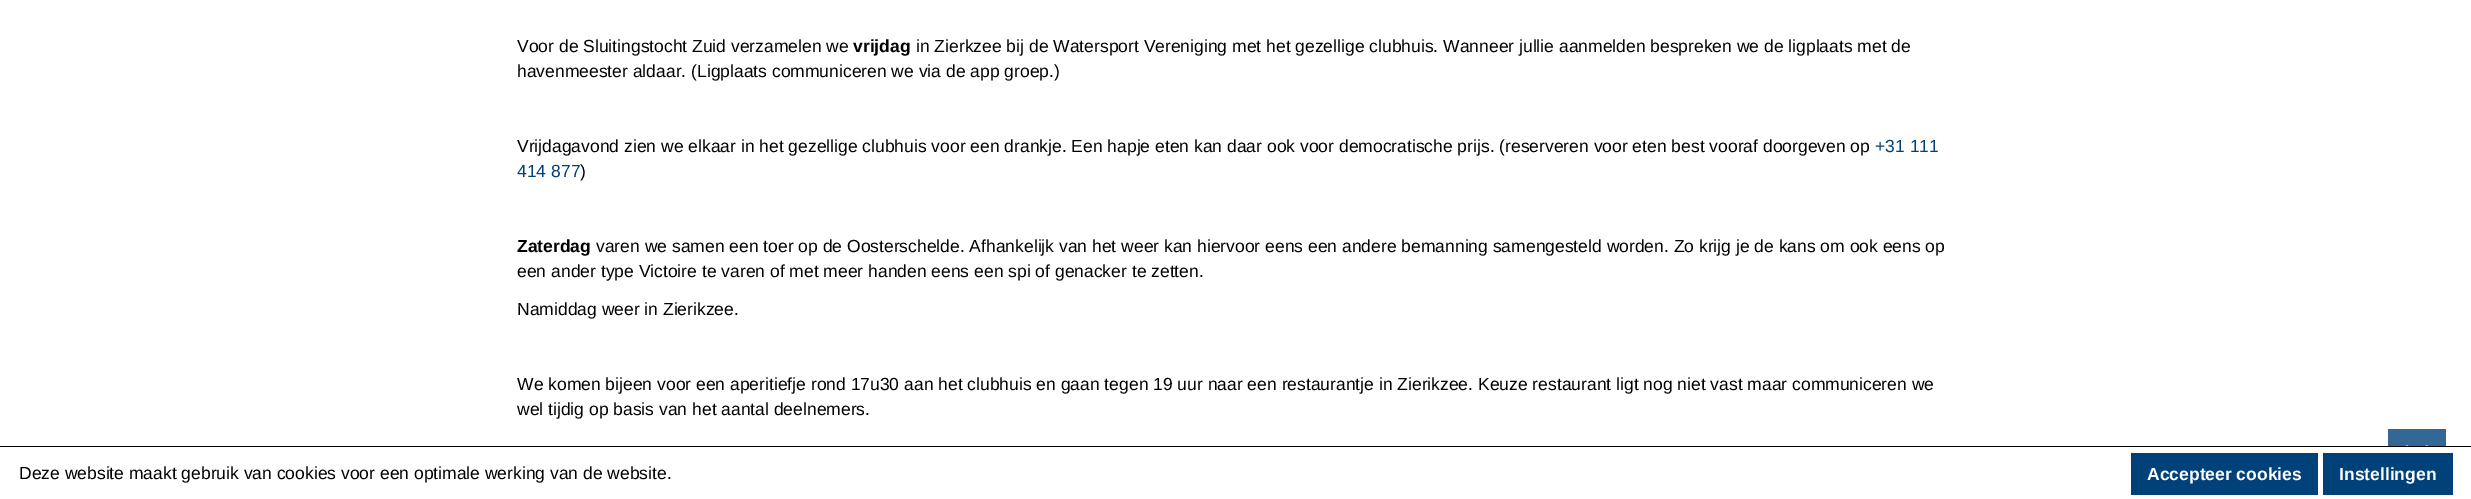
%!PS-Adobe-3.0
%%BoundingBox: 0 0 2471 499
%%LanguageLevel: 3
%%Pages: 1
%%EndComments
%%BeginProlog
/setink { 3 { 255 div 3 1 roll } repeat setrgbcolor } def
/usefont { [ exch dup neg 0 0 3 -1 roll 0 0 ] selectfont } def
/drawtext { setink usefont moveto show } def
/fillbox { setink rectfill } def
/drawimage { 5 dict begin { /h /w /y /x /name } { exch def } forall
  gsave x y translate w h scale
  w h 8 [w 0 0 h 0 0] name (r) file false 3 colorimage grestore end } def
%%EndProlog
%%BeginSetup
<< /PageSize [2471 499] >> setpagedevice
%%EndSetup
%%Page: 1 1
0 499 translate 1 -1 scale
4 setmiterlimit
0 0 2471 499 255 255 255 fillbox
(Voor de Sluitingstocht Zuid verzamelen we) 517 52 /LiberationSans-Regular 17.5 0 0 0 drawtext
(vrijdag) 853 52 /LiberationSans-Bold 17.5 0 0 0 drawtext
(in Zierkzee bij de Watersport Vereniging met het gezellige clubhuis. Wanneer jullie aanmelden bespreken we de ligplaats met de) 916 52 /LiberationSans-Regular 17.5 0 0 0 drawtext
(havenmeester aldaar. \(Ligplaats communiceren we via de app groep.\)) 517 77 /LiberationSans-Regular 17.5 0 0 0 drawtext
(Vrijdagavond zien we elkaar in het gezellige clubhuis voor een drankje. Een hapje eten kan daar ook voor democratische prijs. \(reserveren voor eten best vooraf doorgeven op) 517 152 /LiberationSans-Regular 17.5 0 0 0 drawtext
(+31 111) 1875 152 /LiberationSans-Regular 17.5 0 65 122 drawtext
(414 877) 517 177 /LiberationSans-Regular 17.5 0 65 122 drawtext
(\)) 580 177 /LiberationSans-Regular 17.5 0 0 0 drawtext
(Zaterdag) 517 252 /LiberationSans-Bold 17.5 0 0 0 drawtext
(varen we samen een toer op de Oosterschelde. Afhankelijk van het weer kan hiervoor eens een andere bemanning samengesteld worden. Zo krijg je de kans om ook eens op) 596 252 /LiberationSans-Regular 17.5 0 0 0 drawtext
(een ander type Victoire te varen of met meer handen eens een spi of genacker te zetten.) 517 277 /LiberationSans-Regular 17.5 0 0 0 drawtext
(Namiddag weer in Zierikzee.) 517 315 /LiberationSans-Regular 17.5 0 0 0 drawtext
(We komen bijeen voor een aperitiefje rond 17u30 aan het clubhuis en gaan tegen 19 uur naar een restaurantje in Zierikzee. Keuze restaurant ligt nog niet vast maar communiceren we) 517 390 /LiberationSans-Regular 17.5 0 0 0 drawtext
(wel tijdig op basis van het aantal deelnemers.) 517 415 /LiberationSans-Regular 17.5 0 0 0 drawtext
2388 429 58 17 51 103 149 fillbox
(assets/img1.rgb) 2405 445 23 1 drawimage
0 446 2471 1 0 0 0 fillbox
(Deze website maakt gebruik van cookies voor een optimale werking van de website.) 19 479 /LiberationSans-Regular 17.5 0 0 0 drawtext
2131 453 187 42 0 65 122 fillbox
(Accepteer cookies) 2147 480 /LiberationSans-Bold 17.5 255 255 255 drawtext
2323 453 130 42 0 65 122 fillbox
(Instellingen) 2339 480 /LiberationSans-Bold 17.5 255 255 255 drawtext
showpage
%%EOF
